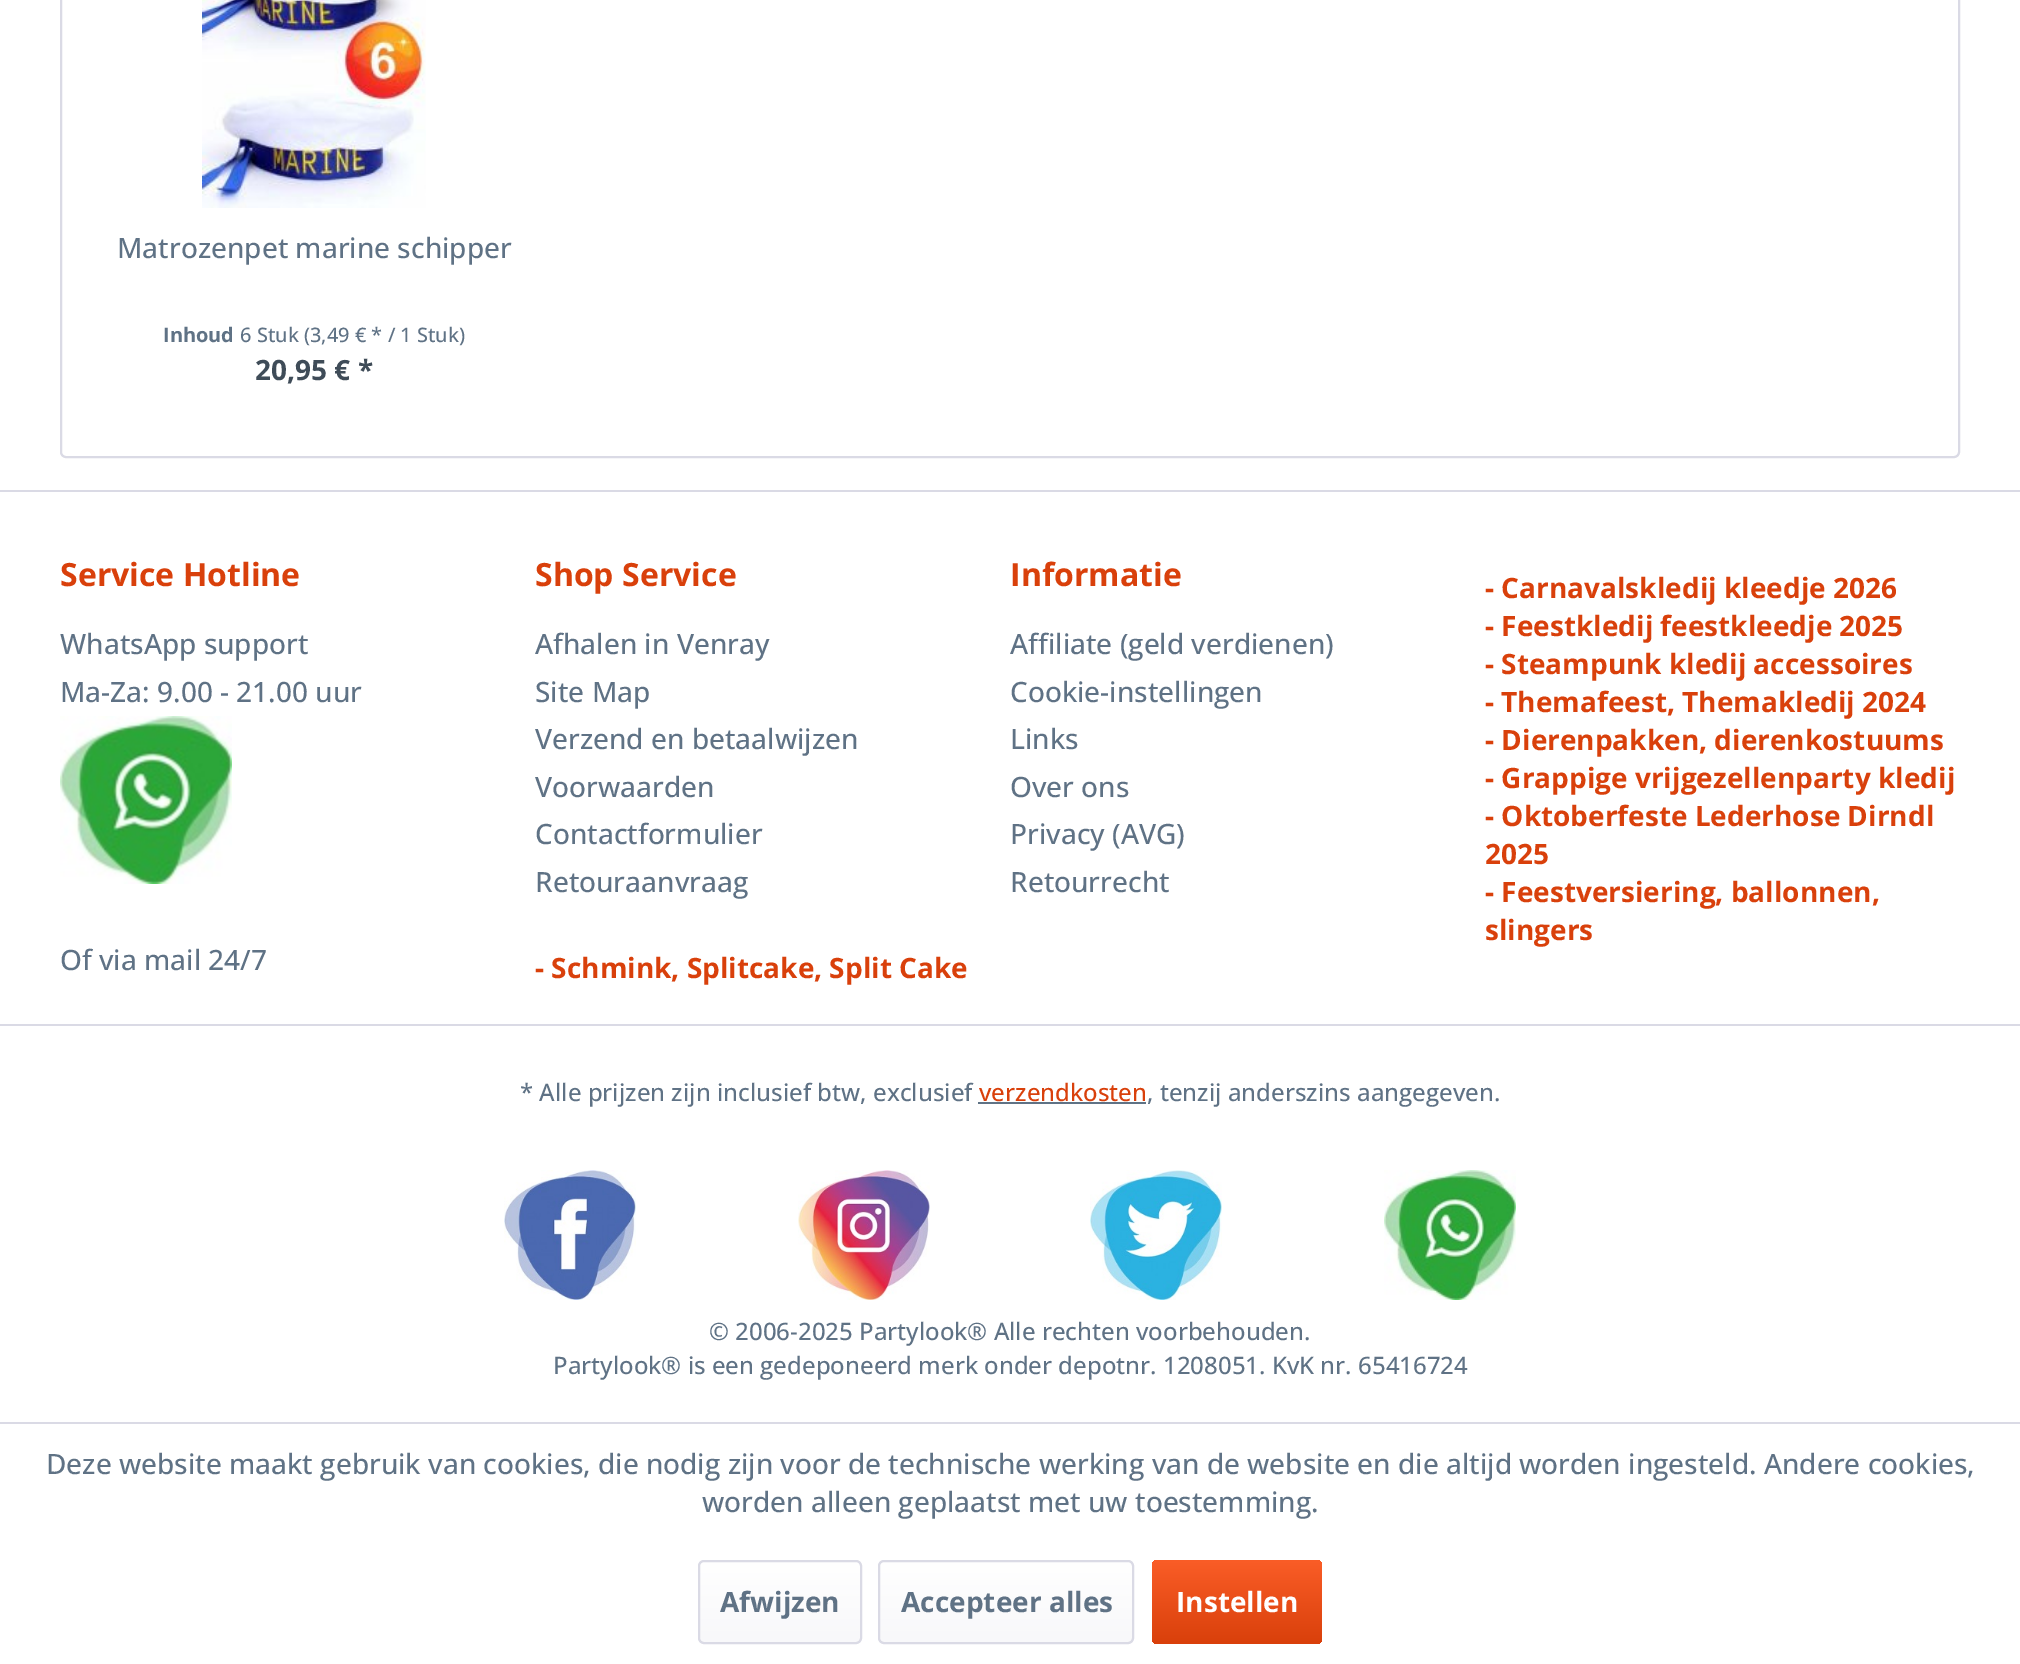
%!PS-Adobe-3.0
%%BoundingBox: 0 0 2020 1664
%%LanguageLevel: 3
%%Pages: 1
%%EndComments
%%BeginProlog
/setink { 3 { 255 div 3 1 roll } repeat setrgbcolor } def
/usefont { [ exch dup neg 0 0 3 -1 roll 0 0 ] selectfont } def
/drawtext { setink usefont moveto show } def
/fillbox { setink rectfill } def
/rrect { 5 dict begin { /r /h /w /y /x } { exch def } forall
  x r add y moveto x w add y 2 copy h add r arct x w add y h add x 1 index r arct
  x y h add x y r arct x y 2 copy exch w add exch r arct closepath end } def
/drawimage { 5 dict begin { /h /w /y /x /name } { exch def } forall
  gsave x y translate w h scale
  w h 8 [w 0 0 h 0 0] name (r) file false 3 colorimage grestore end } def
%%EndProlog
%%BeginSetup
<< /PageSize [2020 1664] >> setpagedevice
%%EndSetup
%%Page: 1 1
0 1664 translate 1 -1 scale
4 setmiterlimit
0 0 2020 1664 255 255 255 fillbox
218 218 229 setink
2 setlinewidth
61 -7 1898 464 5 rrect stroke
(assets/img1.rgb) 202 0 224 208 drawimage
(Matrozenpet marine schipper) 117 258 /OpenSans-Medium 28 95 114 133 drawtext
(Inhoud) 163 342 /OpenSans-Bold 20 95 114 133 drawtext
(6 Stuk \(3,49 € * / 1 Stuk\)) 240 342 /OpenSans-Medium 20 95 114 133 drawtext
(20,95 € *) 255 380 /OpenSans-Bold 28 63 76 88 drawtext
0 490 2020 2 218 218 229 fillbox
0 1024 2020 2 218 218 229 fillbox
(Service Hotline) 60 586 /OpenSans-Bold 32 217 64 11 drawtext
(WhatsApp support) 60 654 /OpenSans-Medium 28 95 114 133 drawtext
(Ma-Za: 9.00 - 21.00 uur) 60 702 /OpenSans-Medium 28 95 114 133 drawtext
(assets/img2.rgb) 60 716 172 168 drawimage
(Of via mail 24/7) 60 970 /OpenSans-Medium 28 95 114 133 drawtext
(Shop Service) 535 586 /OpenSans-Bold 32 217 64 11 drawtext
(Afhalen in Venray) 535 654 /OpenSans-Medium 28 95 114 133 drawtext
(Site Map) 535 702 /OpenSans-Medium 28 95 114 133 drawtext
(Verzend en betaalwijzen) 535 749 /OpenSans-Medium 28 95 114 133 drawtext
(Voorwaarden) 535 797 /OpenSans-Medium 28 95 114 133 drawtext
(Contactformulier) 535 844 /OpenSans-Medium 28 95 114 133 drawtext
(Retouraanvraag) 535 892 /OpenSans-Medium 28 95 114 133 drawtext
(Informatie) 1010 586 /OpenSans-Bold 32 217 64 11 drawtext
(Affiliate \(geld verdienen\)) 1010 654 /OpenSans-Medium 28 95 114 133 drawtext
(Cookie-instellingen) 1010 702 /OpenSans-Medium 28 95 114 133 drawtext
(Links) 1010 749 /OpenSans-Medium 28 95 114 133 drawtext
(Over ons) 1010 797 /OpenSans-Medium 28 95 114 133 drawtext
(Privacy \(AVG\)) 1010 844 /OpenSans-Medium 28 95 114 133 drawtext
(Retourrecht) 1010 892 /OpenSans-Medium 28 95 114 133 drawtext
(- Carnavalskledij kleedje 2026) 1485 598 /OpenSans-Bold 28 217 64 11 drawtext
(- Feestkledij feestkleedje 2025) 1485 636 /OpenSans-Bold 28 217 64 11 drawtext
(- Steampunk kledij accessoires) 1485 674 /OpenSans-Bold 28 217 64 11 drawtext
(- Themafeest, Themakledij 2024) 1485 712 /OpenSans-Bold 28 217 64 11 drawtext
(- Dierenpakken, dierenkostuums) 1485 750 /OpenSans-Bold 28 217 64 11 drawtext
(- Grappige vrijgezellenparty kledij) 1485 788 /OpenSans-Bold 28 217 64 11 drawtext
(- Oktoberfeste Lederhose Dirndl) 1485 826 /OpenSans-Bold 28 217 64 11 drawtext
(2025) 1485 864 /OpenSans-Bold 28 217 64 11 drawtext
(- Feestversiering, ballonnen,) 1485 902 /OpenSans-Bold 28 217 64 11 drawtext
(slingers) 1485 940 /OpenSans-Bold 28 217 64 11 drawtext
(- Schmink, Splitcake, Split Cake) 535 978 /OpenSans-Bold 28 217 64 11 drawtext
(* Alle prijzen zijn inclusief btw, exclusief) 520 1101 /OpenSans-Medium 24 95 114 133 drawtext
(verzendkosten) 979 1101 /OpenSans-Medium 24 217 64 11 drawtext
978 1102 168 2 95 114 133 fillbox
(, tenzij anderszins aangegeven.) 1147 1101 /OpenSans-Medium 24 95 114 133 drawtext
(assets/img3.rgb) 504 1170 132 130 drawimage
(assets/img4.rgb) 798 1170 132 130 drawimage
(assets/img5.rgb) 1090 1170 132 130 drawimage
(assets/img6.rgb) 1384 1170 132 130 drawimage
(© 2006-2025 Partylook® Alle rechten voorbehouden.) 709 1340 /OpenSans-Medium 24 95 114 133 drawtext
(Partylook® is een gedeponeerd merk onder depotnr. 1208051. KvK nr. 65416724) 553 1374 /OpenSans-Medium 24 95 114 133 drawtext
0 1422 2020 2 218 218 229 fillbox
(Deze website maakt gebruik van cookies, die nodig zijn voor de technische werking van de website en die altijd worden ingesteld. Andere cookies,) 46 1474 /OpenSans-Medium 28 95 114 133 drawtext
(worden alleen geplaatst met uw toestemming.) 702 1512 /OpenSans-Medium 28 95 114 133 drawtext
gsave 700 1562 160 80 4 rrect clip newpath
<< /ShadingType 2 /ColorSpace /DeviceRGB /Coords [780 1562 780 1642] /Extend [true true] /Function << /FunctionType 2 /Domain [0 1] /C0 [1 1 1] /C1 [0.973 0.973 0.98] /N 1 >> >> shfill grestore
218 218 229 setink
699 1561 162 82 5 rrect stroke
(Afwijzen) 720 1612 /OpenSans-Bold 28 95 114 133 drawtext
gsave 880 1562 252 80 4 rrect clip newpath
<< /ShadingType 2 /ColorSpace /DeviceRGB /Coords [1006 1562 1006 1642] /Extend [true true] /Function << /FunctionType 2 /Domain [0 1] /C0 [1 1 1] /C1 [0.973 0.973 0.98] /N 1 >> >> shfill grestore
218 218 229 setink
879 1561 254 82 5 rrect stroke
(Accepteer alles) 901 1612 /OpenSans-Bold 28 95 114 133 drawtext
gsave 1152 1560 170 84 6 rrect clip newpath
<< /ShadingType 2 /ColorSpace /DeviceRGB /Coords [1237 1560 1237 1644] /Extend [true true] /Function << /FunctionType 2 /Domain [0 1] /C0 [0.98 0.365 0.153] /C1 [0.851 0.251 0.043] /N 1 >> >> shfill grestore
(Instellen) 1176 1612 /OpenSans-Bold 28 255 255 255 drawtext
showpage
%%EOF
